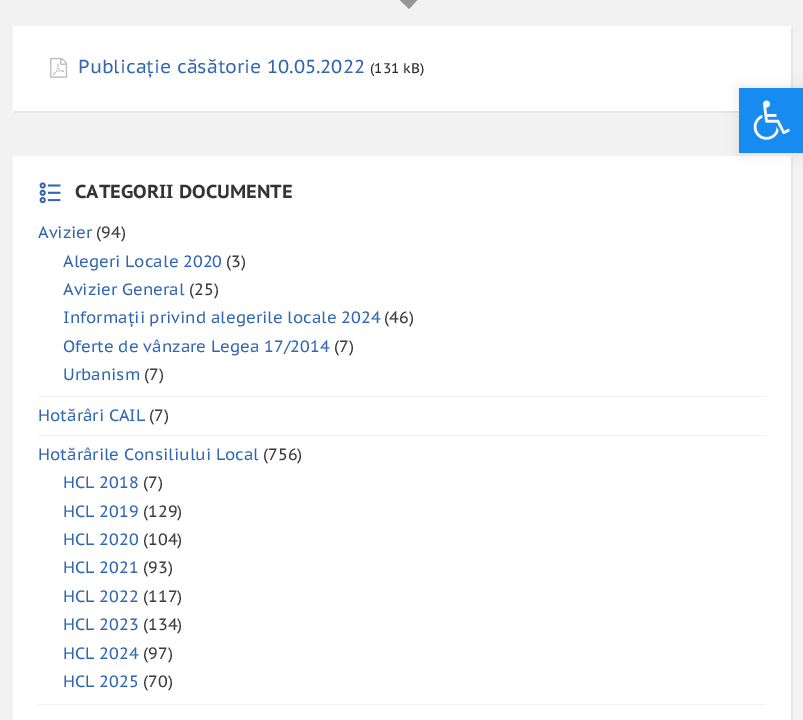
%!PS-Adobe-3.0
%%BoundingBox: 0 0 803 720
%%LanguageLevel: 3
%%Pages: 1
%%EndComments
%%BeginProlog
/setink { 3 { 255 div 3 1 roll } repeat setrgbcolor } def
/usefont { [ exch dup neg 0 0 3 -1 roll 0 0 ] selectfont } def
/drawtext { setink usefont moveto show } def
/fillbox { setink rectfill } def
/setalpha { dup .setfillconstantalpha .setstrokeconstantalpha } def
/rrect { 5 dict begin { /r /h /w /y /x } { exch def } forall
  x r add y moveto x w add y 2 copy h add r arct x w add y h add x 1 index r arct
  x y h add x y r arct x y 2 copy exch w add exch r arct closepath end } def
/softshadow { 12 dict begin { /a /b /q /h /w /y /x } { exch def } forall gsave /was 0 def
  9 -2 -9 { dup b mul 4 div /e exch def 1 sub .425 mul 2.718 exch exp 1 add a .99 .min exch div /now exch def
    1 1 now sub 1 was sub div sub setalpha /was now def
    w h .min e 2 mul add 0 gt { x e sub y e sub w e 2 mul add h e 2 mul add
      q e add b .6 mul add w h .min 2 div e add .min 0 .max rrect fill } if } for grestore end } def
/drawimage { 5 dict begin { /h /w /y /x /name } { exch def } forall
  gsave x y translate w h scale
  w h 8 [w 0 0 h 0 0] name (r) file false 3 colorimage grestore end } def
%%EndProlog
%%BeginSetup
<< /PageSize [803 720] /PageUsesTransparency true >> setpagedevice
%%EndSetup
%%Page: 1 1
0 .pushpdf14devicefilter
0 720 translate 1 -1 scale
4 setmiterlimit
0 0 803 720 242 242 242 fillbox
150 150 150 setink
396 -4 moveto 421 -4 lineto 409 9 lineto closepath fill
230 230 230 setink
14 111 moveto 14 113 lineto 793 113 lineto 793 28 lineto 791 28 lineto 791 111 lineto closepath fill
13 26 778 85 255 255 255 fillbox
(assets/img1.rgb) 50 57 18 21 drawimage
(Publicație căsătorie 10.05.2022) 78 73 /PTSansCaption-Regular 18.75 49 103 177 drawtext
(\(131 kB\)) 370 73 /PTSansCaption-Regular 14 43 43 43 drawtext
230 230 230 setink
14 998 moveto 14 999 lineto 793 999 lineto 793 158 lineto 791 158 lineto 791 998 lineto closepath fill
13 156 778 564 255 255 255 fillbox
(assets/img2.rgb) 39 182 22 22 drawimage
(CATEGORII DOCUMENTE) 75 198 /PTSansCaption-Bold 18.75 51 51 51 drawtext
(Avizier) 38 238 /PTSansCaption-Regular 16.4 49 103 177 drawtext
(\(94\)) 96 238 /PTSansCaption-Regular 16.4 60 60 60 drawtext
(Alegeri Locale 2020) 63 267 /PTSansCaption-Regular 16.4 49 103 177 drawtext
(\(3\)) 226 267 /PTSansCaption-Regular 16.4 60 60 60 drawtext
(Avizier General) 63 295 /PTSansCaption-Regular 16.4 49 103 177 drawtext
(\(25\)) 189 295 /PTSansCaption-Regular 16.4 60 60 60 drawtext
(Informații privind alegerile locale 2024) 63 323 /PTSansCaption-Regular 16.4 49 103 177 drawtext
(\(46\)) 384 323 /PTSansCaption-Regular 16.4 60 60 60 drawtext
(Oferte de vânzare Legea 17/2014) 63 352 /PTSansCaption-Regular 16.4 49 103 177 drawtext
(\(7\)) 334 352 /PTSansCaption-Regular 16.4 60 60 60 drawtext
(Urbanism) 63 380 /PTSansCaption-Regular 16.4 49 103 177 drawtext
(\(7\)) 144 380 /PTSansCaption-Regular 16.4 60 60 60 drawtext
38 396 728 1 240 240 240 fillbox
(Hotărâri CAIL) 38 421 /PTSansCaption-Regular 16.4 49 103 177 drawtext
(\(7\)) 149 421 /PTSansCaption-Regular 16.4 60 60 60 drawtext
38 435 728 1 240 240 240 fillbox
(Hotărârile Consiliului Local) 38 460 /PTSansCaption-Regular 16.4 49 103 177 drawtext
(\(756\)) 263 460 /PTSansCaption-Regular 16.4 60 60 60 drawtext
(HCL 2018) 63 488 /PTSansCaption-Regular 16.4 49 103 177 drawtext
(\(7\)) 143 488 /PTSansCaption-Regular 16.4 60 60 60 drawtext
(HCL 2019) 63 517 /PTSansCaption-Regular 16.4 49 103 177 drawtext
(\(129\)) 143 517 /PTSansCaption-Regular 16.4 60 60 60 drawtext
(HCL 2020) 63 545 /PTSansCaption-Regular 16.4 49 103 177 drawtext
(\(104\)) 143 545 /PTSansCaption-Regular 16.4 60 60 60 drawtext
(HCL 2021) 63 573 /PTSansCaption-Regular 16.4 49 103 177 drawtext
(\(93\)) 143 573 /PTSansCaption-Regular 16.4 60 60 60 drawtext
(HCL 2022) 63 602 /PTSansCaption-Regular 16.4 49 103 177 drawtext
(\(117\)) 143 602 /PTSansCaption-Regular 16.4 60 60 60 drawtext
(HCL 2023) 63 630 /PTSansCaption-Regular 16.4 49 103 177 drawtext
(\(134\)) 143 630 /PTSansCaption-Regular 16.4 60 60 60 drawtext
(HCL 2024) 63 659 /PTSansCaption-Regular 16.4 49 103 177 drawtext
(\(97\)) 143 659 /PTSansCaption-Regular 16.4 60 60 60 drawtext
(HCL 2025) 63 687 /PTSansCaption-Regular 16.4 49 103 177 drawtext
(\(70\)) 143 687 /PTSansCaption-Regular 16.4 60 60 60 drawtext
38 704 728 1 240 240 240 fillbox
0 0 0 setink
739 88 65 65 0 6 0.1 softshadow
739 88 64 65 23 139 239 fillbox
(assets/img3.rgb) 753 100 37 40 drawimage
.poppdf14devicefilter showpage
%%EOF
